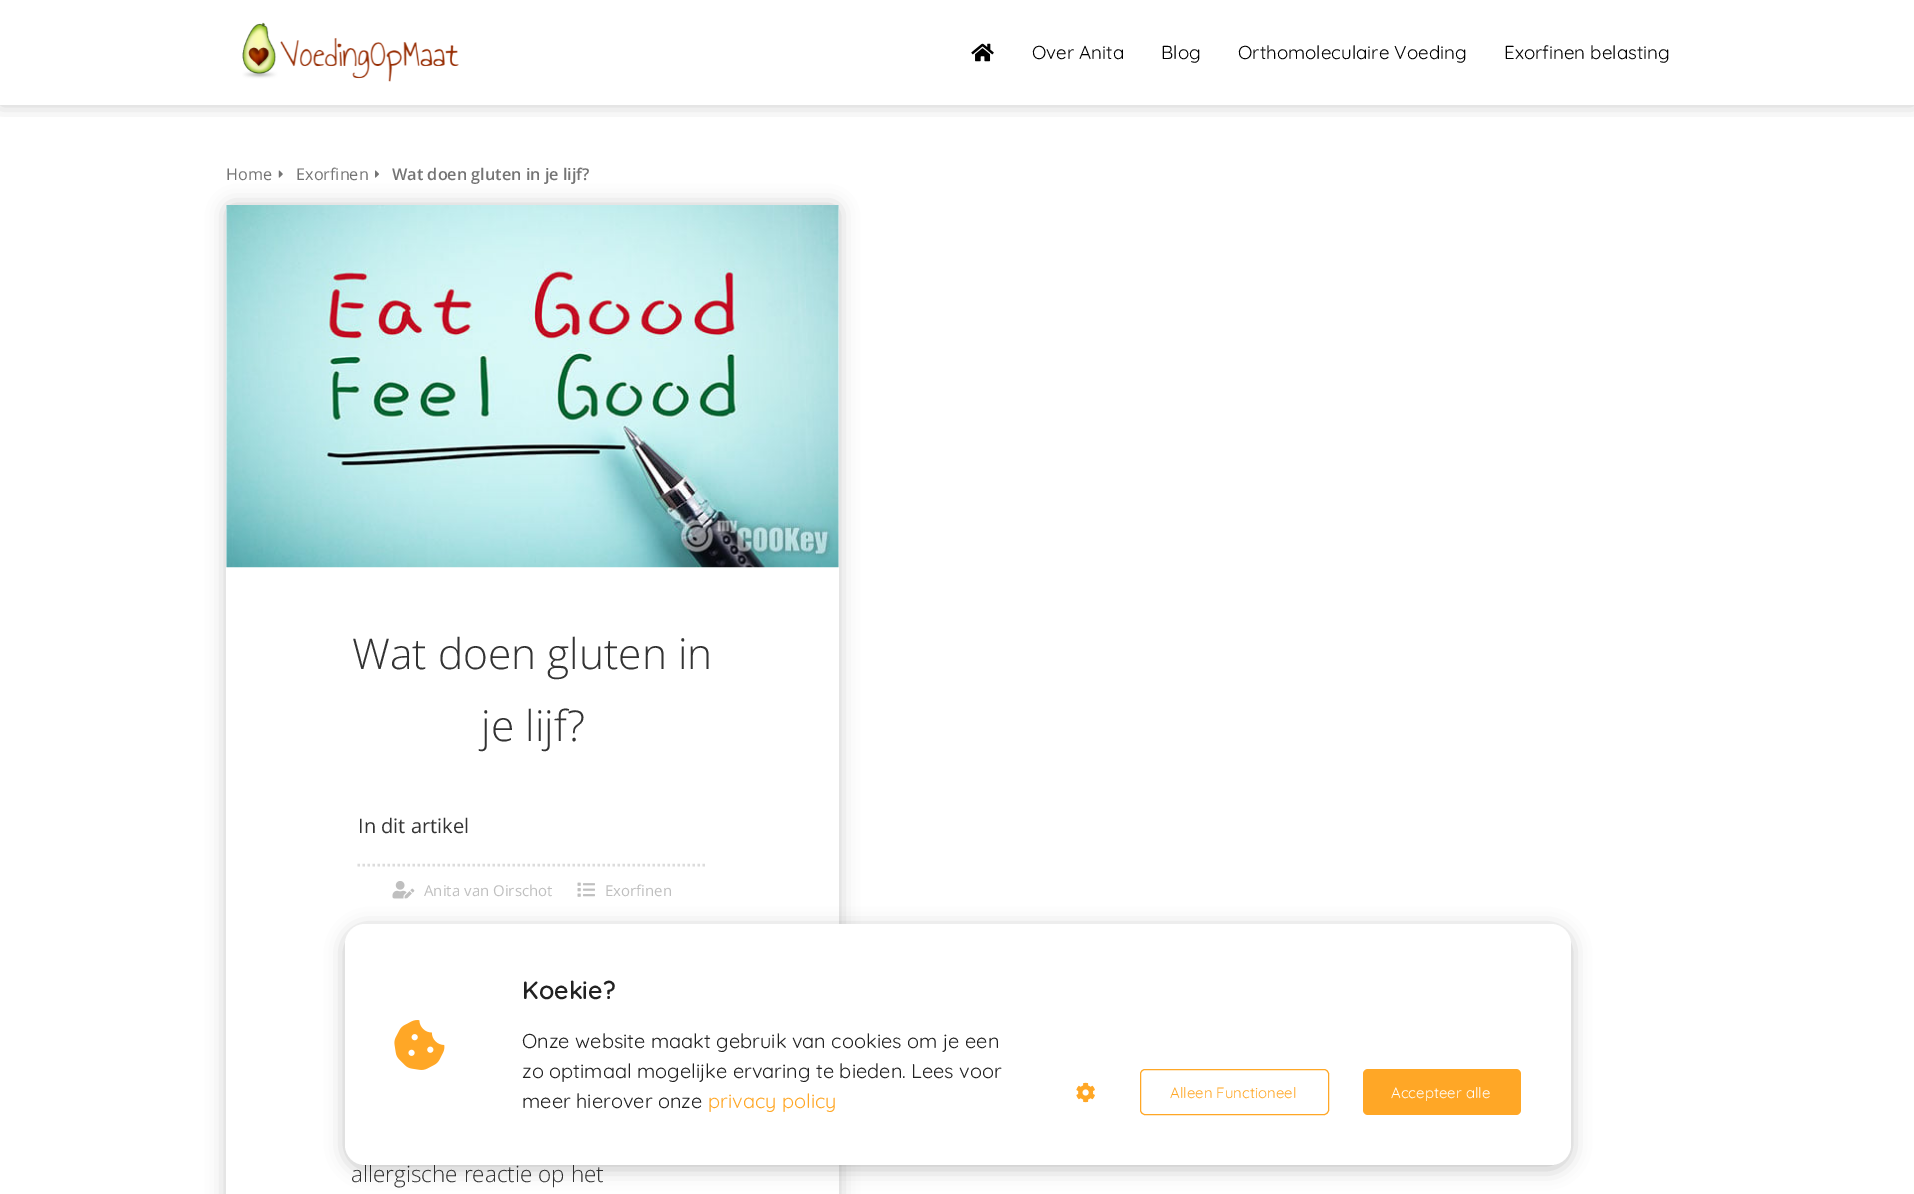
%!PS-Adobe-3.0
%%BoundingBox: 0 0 1914 1194
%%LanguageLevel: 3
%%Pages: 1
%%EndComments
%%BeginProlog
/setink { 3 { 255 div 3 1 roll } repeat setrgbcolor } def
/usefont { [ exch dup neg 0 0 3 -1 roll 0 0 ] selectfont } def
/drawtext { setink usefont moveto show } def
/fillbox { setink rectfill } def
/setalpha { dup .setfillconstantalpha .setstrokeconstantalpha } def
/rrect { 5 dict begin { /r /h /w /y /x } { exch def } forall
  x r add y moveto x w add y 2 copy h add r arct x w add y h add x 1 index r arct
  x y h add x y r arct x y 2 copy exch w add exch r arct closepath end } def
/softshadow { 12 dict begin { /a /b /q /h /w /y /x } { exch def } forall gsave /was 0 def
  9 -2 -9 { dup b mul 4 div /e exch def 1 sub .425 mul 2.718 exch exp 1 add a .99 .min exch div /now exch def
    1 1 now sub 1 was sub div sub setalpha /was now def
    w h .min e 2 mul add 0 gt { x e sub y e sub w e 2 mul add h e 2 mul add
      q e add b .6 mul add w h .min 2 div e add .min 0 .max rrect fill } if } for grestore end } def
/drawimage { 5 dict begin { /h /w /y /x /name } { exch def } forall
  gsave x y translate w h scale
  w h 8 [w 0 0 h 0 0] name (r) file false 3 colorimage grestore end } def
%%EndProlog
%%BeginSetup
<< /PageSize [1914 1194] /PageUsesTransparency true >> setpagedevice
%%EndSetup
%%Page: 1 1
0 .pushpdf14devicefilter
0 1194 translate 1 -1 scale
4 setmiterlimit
0 0 1914 1194 255 255 255 fillbox
gsave
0 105 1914 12 rectclip
0 0 0 setink
0 0 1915 105 0 9.5 0.2 softshadow
grestore
(assets/img1.rgb) 242 22 217 60 drawimage
(assets/img2.rgb) 971 43 23 19 drawimage
(Over Anita) 1032 59 /Quicksand-Regular 18.75 0 0 0 drawtext
(Blog) 1161 59 /Quicksand-Regular 18.75 0 0 0 drawtext
(Orthomoleculaire Voeding) 1238 59 /Quicksand-Regular 18.75 0 0 0 drawtext
(Exorfinen belasting) 1504 59 /Quicksand-Regular 18.75 0 0 0 drawtext
226 205 613 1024 6 9.5 0.2 softshadow
(Home) 226 180 /OpenSans-Regular 16.25 116 116 116 drawtext
(assets/img3.rgb) 278 170 5 8 drawimage
(Exorfinen) 296 180 /OpenSans-Regular 16.25 116 116 116 drawtext
(assets/img4.rgb) 375 170 4 8 drawimage
(Wat doen gluten in je lijf?) 392 180 /OpenSans-SemiBold 16.25 116 116 116 drawtext
255 255 255 setink
226 205 613 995 6 rrect fill
(assets/img5.rgb) 226 205 613 363 drawimage
(Wat doen gluten in) 352 669 /OpenSans-Light 42.5 51 51 51 drawtext
(je lijf?) 481 741 /OpenSans-Light 42.5 51 51 51 drawtext
(In dit artikel) 358 833 /OpenSans-Regular 20 51 51 51 drawtext
220 220 220 setink
2.5 setlinewidth
[2.5 2.5] 0 setdash
357.5 865 moveto 707.5 865 lineto stroke
(assets/img6.rgb) 392 881 23 18 drawimage
(Anita van Oirschot) 424 896 /OpenSans-Regular 15 191 191 191 drawtext
(assets/img7.rgb) 577 882 18 15 drawimage
(Exorfinen) 605 896 /OpenSans-Regular 15 191 191 191 drawtext
(allergische reactie op het) 351 1182 /OpenSans-Light 22.5 51 51 51 drawtext
0 0 0 setink
345 928 1226 241 20 9.5 0.24 softshadow
255 255 255 setink
345 924 1226 241 20 rrect fill
(assets/img8.rgb) 394 1020 51 50 drawimage
(Koekie?) 522 999 /Quicksand-SemiBold 25 34 34 34 drawtext
(Onze website maakt gebruik van cookies om je een) 522 1048 /Quicksand-Regular 20 34 34 34 drawtext
(zo optimaal mogelijke ervaring te bieden. Lees voor) 522 1078 /Quicksand-Regular 20 34 34 34 drawtext
(meer hierover onze) 522 1108 /Quicksand-Regular 20 34 34 34 drawtext
(privacy policy) 708 1108 /Quicksand-Regular 20 255 167 38 drawtext
(assets/img9.rgb) 1076 1082 19 21 drawimage
1 setlinewidth
[] 0 setdash
1140.5 1069.5 188 45 4.5 rrect stroke
(Alleen Functioneel) 1170 1098 /Quicksand-Regular 15 255 167 38 drawtext
1363 1069 158 46 5 rrect fill
(Accepteer alle) 1391 1098 /Quicksand-Regular 15 255 255 255 drawtext
.poppdf14devicefilter showpage
%%EOF
